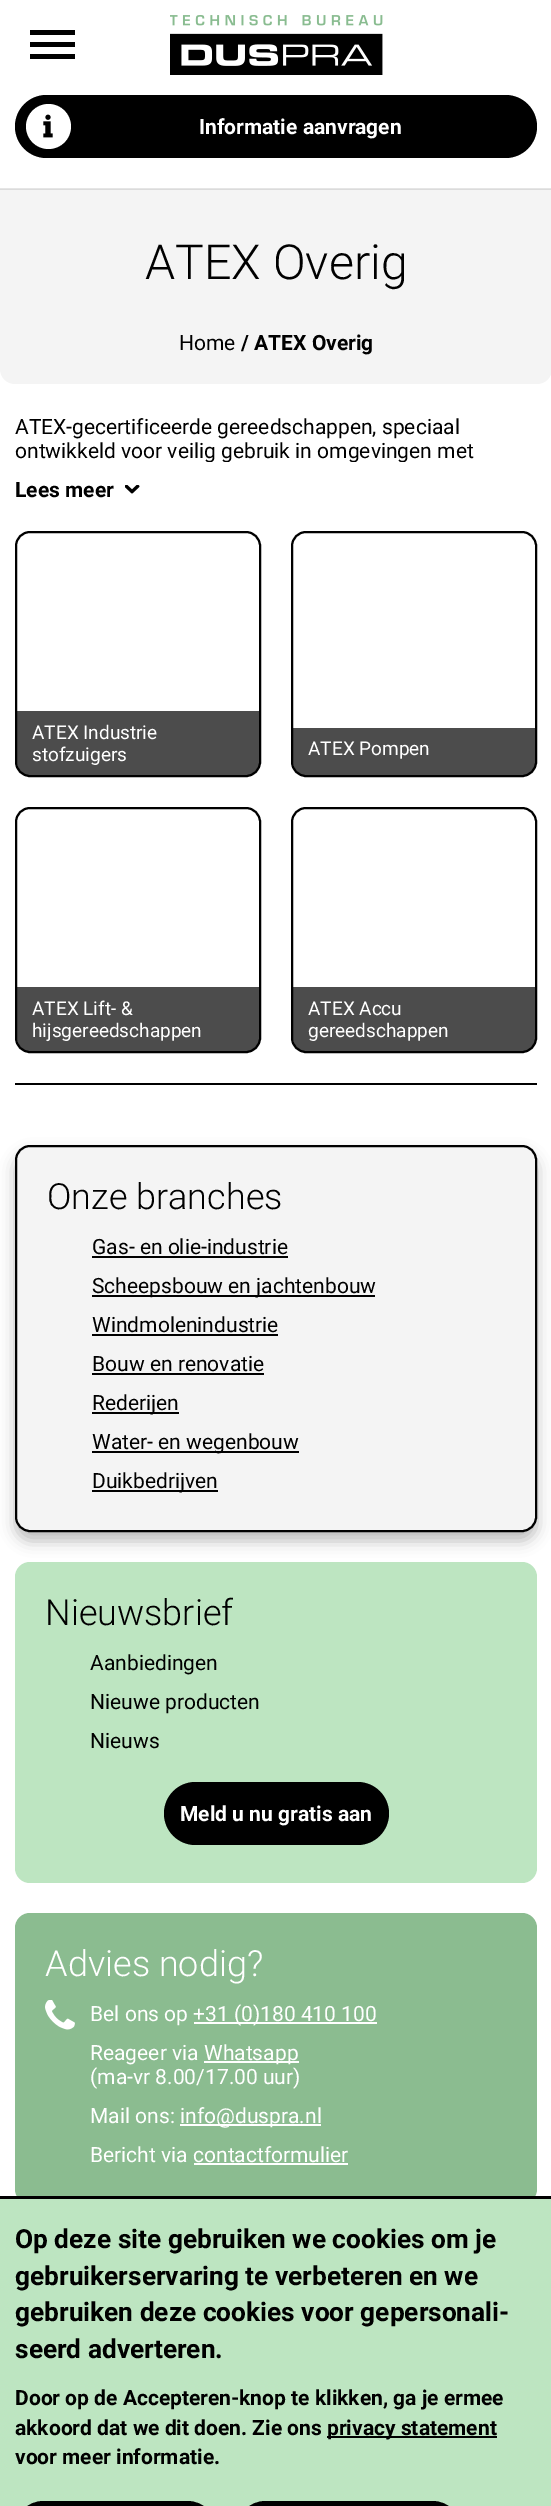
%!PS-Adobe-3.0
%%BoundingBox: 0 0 551 2506
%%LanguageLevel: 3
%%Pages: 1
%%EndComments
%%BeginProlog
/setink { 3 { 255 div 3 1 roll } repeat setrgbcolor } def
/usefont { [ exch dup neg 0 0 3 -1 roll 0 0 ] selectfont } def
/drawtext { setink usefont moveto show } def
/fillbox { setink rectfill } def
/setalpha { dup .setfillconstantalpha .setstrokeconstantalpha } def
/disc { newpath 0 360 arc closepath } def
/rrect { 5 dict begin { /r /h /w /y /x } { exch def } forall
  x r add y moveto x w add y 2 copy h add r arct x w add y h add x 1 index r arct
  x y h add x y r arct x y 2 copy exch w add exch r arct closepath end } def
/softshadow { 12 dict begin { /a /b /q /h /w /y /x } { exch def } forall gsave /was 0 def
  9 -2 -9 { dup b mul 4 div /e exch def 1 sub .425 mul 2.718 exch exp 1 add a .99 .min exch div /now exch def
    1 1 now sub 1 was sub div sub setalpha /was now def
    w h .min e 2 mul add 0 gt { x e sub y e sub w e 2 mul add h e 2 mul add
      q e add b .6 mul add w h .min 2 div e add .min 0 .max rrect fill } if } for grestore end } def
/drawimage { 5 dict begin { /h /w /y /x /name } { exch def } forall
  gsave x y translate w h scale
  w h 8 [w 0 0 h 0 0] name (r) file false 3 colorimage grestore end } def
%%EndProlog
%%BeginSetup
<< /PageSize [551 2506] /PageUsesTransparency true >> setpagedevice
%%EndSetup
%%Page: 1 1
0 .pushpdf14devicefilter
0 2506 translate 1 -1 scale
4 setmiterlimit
0 0 551 2506 255 255 255 fillbox
30 42 45 5 0 0 0 fillbox
30 30 45 5 0 0 0 fillbox
30 54 45 5 0 0 0 fillbox
244 244 244 setink
0 174 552 210 15 rrect fill
0 174 551 15 255 255 255 fillbox
0.1 setalpha
0 188 551 2 0 0 0 fillbox
1 setalpha
(assets/img1.rgb) 170 15 213 60 drawimage
15 95 522 63 31.5 rrect fill
255 255 255 setink
48.5 126.5 22.5 disc fill
(assets/img2.rgb) 43 114 10 24 drawimage
(Informatie aanvragen) 199 134 /Roboto-Bold 21 255 255 255 drawtext
(ATEX Overig) 145 279 /Roboto-Light 48.25 0 0 0 drawtext
(Home) 179 350 /Roboto-Regular 21 0 0 0 drawtext
(/ ATEX Overig) 241 350 /Roboto-Bold 21 0 0 0 drawtext
(ATEX-gecertificeerde gereedschappen, speciaal) 15 434 /Roboto-Regular 21 0 0 0 drawtext
gsave
15 414 522 48 rectclip
(ontwikkeld voor veilig gebruik in omgevingen met) 15 458 /Roboto-Regular 21 0 0 0 drawtext
grestore
(Lees meer) 15 497 /Roboto-Bold 21 0 0 0 drawtext
(assets/img3.rgb) 125 485 15 9 drawimage
15 1083 522 2 0 0 0 fillbox
2 setlinewidth
16 532 244 244 14 rrect stroke
0.7 setalpha
17 711 moveto 260 711 lineto 260 762 lineto 260 769.5 253.5 776 246 776 curveto 31 776 lineto 23.5 776 17 769.5 17 762 curveto closepath fill
1 setalpha
(ATEX Industrie) 32 739 /Roboto-Regular 19 255 255 255 drawtext
(stofzuigers) 32 761 /Roboto-Regular 19 255 255 255 drawtext
0 0 0 setink
292 532 244 244 14 rrect stroke
0.7 setalpha
293 728 moveto 536 728 lineto 536 762 lineto 536 769.5 529.5 776 522 776 curveto 307 776 lineto 299.5 776 293 769.5 293 762 curveto closepath fill
1 setalpha
(ATEX Pompen) 308 755 /Roboto-Regular 19 255 255 255 drawtext
0 0 0 setink
16 808 244 244 14 rrect stroke
0.7 setalpha
17 987 moveto 260 987 lineto 260 1038 lineto 260 1045.5 253.5 1052 246 1052 curveto 31 1052 lineto 23.5 1052 17 1045.5 17 1038 curveto closepath fill
1 setalpha
(ATEX Lift- &) 32 1015 /Roboto-Regular 19 255 255 255 drawtext
(hijsgereedschappen) 32 1037 /Roboto-Regular 19 255 255 255 drawtext
0 0 0 setink
292 808 244 244 14 rrect stroke
0.7 setalpha
293 987 moveto 536 987 lineto 536 1038 lineto 536 1045.5 529.5 1052 522 1052 curveto 307 1052 lineto 299.5 1052 293 1045.5 293 1038 curveto closepath fill
1 setalpha
(ATEX Accu) 308 1015 /Roboto-Regular 19 255 255 255 drawtext
(gereedschappen) 308 1037 /Roboto-Regular 19 255 255 255 drawtext
187 187 187 setink
15 1154 522 387 15 7.5 1 softshadow
244 244 244 setink
16 1146 520 385 14 rrect gsave fill grestore
0 0 0 setink
stroke
(Onze branches) 47 1209 /Roboto-Light 36 0 0 0 drawtext
(Gas- en olie-industrie) 92 1254 /Roboto-Regular 21 0 0 0 drawtext
92 1256 196 2 0 0 0 fillbox
92 1295 283 2 0 0 0 fillbox
(Scheepsbouw en jachtenbouw) 92 1293 /Roboto-Regular 21 0 0 0 drawtext
(Windmolenindustrie) 92 1332 /Roboto-Regular 21 0 0 0 drawtext
92 1334 186 2 0 0 0 fillbox
(Bouw en renovatie) 92 1371 /Roboto-Regular 21 0 0 0 drawtext
92 1373 172 2 0 0 0 fillbox
92 1412 87 2 0 0 0 fillbox
(Rederijen) 92 1410 /Roboto-Regular 21 0 0 0 drawtext
92 1451 207 2 0 0 0 fillbox
(Water- en wegenbouw) 92 1449 /Roboto-Regular 21 0 0 0 drawtext
92 1490 126 2 0 0 0 fillbox
(Duikbedrijven) 92 1488 /Roboto-Regular 21 0 0 0 drawtext
189 229 193 setink
15 1562 522 321 15 rrect fill
(Nieuwsbrief) 45 1625 /Roboto-Light 36 0 0 0 drawtext
(Aanbiedingen) 90 1670 /Roboto-Regular 21 0 0 0 drawtext
(Nieuwe producten) 90 1709 /Roboto-Regular 21 0 0 0 drawtext
(Nieuws) 90 1748 /Roboto-Regular 21 0 0 0 drawtext
164 1782 225 63 31.5 rrect fill
(Meld u nu gratis aan) 180 1821 /Roboto-Bold 21 255 255 255 drawtext
139 188 144 setink
15 1913 522 291 15 rrect fill
(Advies nodig?) 45 1976 /Roboto-Light 36 255 255 255 drawtext
(assets/img4.rgb) 45 2000 30 30 drawimage
(Bel ons op) 90 2021 /Roboto-Regular 21 255 255 255 drawtext
194 2022 183 2 255 255 255 fillbox
(+31 \(0\)180 410 100) 193 2021 /Roboto-Regular 21 255 255 255 drawtext
(Reageer via) 90 2060 /Roboto-Regular 21 255 255 255 drawtext
204 2061 95 2 255 255 255 fillbox
(Whatsapp) 204 2060 /Roboto-Regular 21 255 255 255 drawtext
(\(ma-vr 8.00/17.00 uur\)) 90 2084 /Roboto-Regular 21 255 255 255 drawtext
(Mail ons:) 90 2123 /Roboto-Regular 21 255 255 255 drawtext
180 2124 141 2 255 255 255 fillbox
(info@duspra.nl) 180 2123 /Roboto-Regular 21 255 255 255 drawtext
(Bericht via contactformulier) 90 2162 /Roboto-Regular 21 255 255 255 drawtext
194 2163 154 2 255 255 255 fillbox
0 2199 551 307 189 229 193 fillbox
0 2196 551 3 0 0 0 fillbox
(Op deze site gebruiken we cookies om je) 15 2248 /Roboto-Bold 26.25 0 0 0 drawtext
(gebruikerservaring te verbeteren en we) 15 2285 /Roboto-Bold 26.25 0 0 0 drawtext
(gebruiken deze cookies voor gepersonali-) 15 2321 /Roboto-Bold 26.25 0 0 0 drawtext
(seerd adverteren.) 15 2358 /Roboto-Bold 26.25 0 0 0 drawtext
(Door op de Accepteren-knop te klikken, ga je ermee) 15 2405 /Roboto-Bold 21 0 0 0 drawtext
(akkoord dat we dit doen. Zie ons) 15 2435 /Roboto-Bold 21 0 0 0 drawtext
327 2436 170 2 0 0 0 fillbox
(privacy statement) 327 2435 /Roboto-Bold 21 0 0 0 drawtext
(voor meer informatie.) 15 2464 /Roboto-Bold 21 0 0 0 drawtext
16 2502 199 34 27.5 rrect gsave fill grestore
stroke
238 2502 222 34 27.5 rrect gsave fill grestore
stroke
.poppdf14devicefilter showpage
%%EOF
